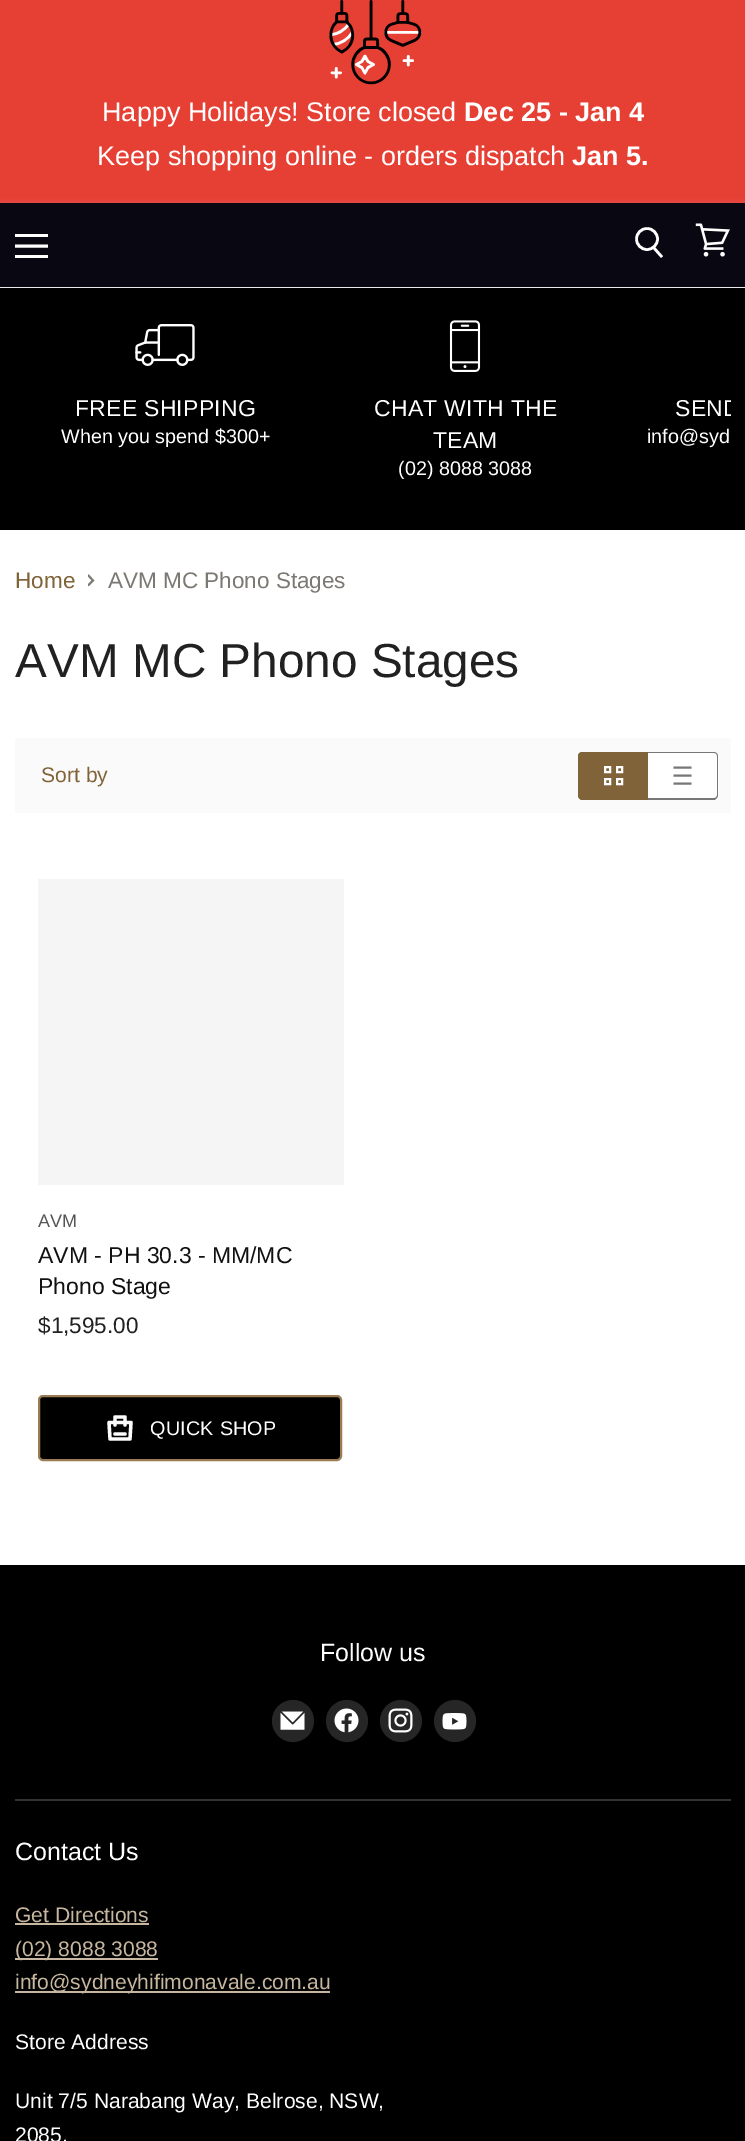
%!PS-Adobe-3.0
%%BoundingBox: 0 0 745 2141
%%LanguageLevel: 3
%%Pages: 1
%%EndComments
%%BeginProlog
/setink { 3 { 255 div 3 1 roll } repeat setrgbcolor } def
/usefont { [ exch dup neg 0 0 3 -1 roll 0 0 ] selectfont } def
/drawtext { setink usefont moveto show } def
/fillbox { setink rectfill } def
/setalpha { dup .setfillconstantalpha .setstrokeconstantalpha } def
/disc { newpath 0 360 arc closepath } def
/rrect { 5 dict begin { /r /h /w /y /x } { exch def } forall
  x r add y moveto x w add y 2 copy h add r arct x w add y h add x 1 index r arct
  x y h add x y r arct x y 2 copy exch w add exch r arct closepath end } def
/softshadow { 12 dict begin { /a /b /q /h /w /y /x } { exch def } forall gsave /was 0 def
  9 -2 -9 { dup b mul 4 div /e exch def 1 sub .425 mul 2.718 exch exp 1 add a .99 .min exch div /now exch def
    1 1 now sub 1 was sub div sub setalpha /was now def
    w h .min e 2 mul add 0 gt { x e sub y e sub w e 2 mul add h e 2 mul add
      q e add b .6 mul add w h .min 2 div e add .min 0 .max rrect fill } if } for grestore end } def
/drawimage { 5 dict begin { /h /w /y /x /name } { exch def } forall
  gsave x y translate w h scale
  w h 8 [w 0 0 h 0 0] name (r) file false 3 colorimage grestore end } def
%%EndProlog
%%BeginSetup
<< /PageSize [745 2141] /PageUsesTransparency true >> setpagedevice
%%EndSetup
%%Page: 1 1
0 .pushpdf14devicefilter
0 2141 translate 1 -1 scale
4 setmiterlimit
0 0 745 2141 255 255 255 fillbox
0 0 745 203 230 64 53 fillbox
(assets/img1.rgb) 329 0 93 85 drawimage
(Happy Holidays! Store closed) 102 121 /LiberationSans-Regular 27 255 255 255 drawtext
(Dec 25 - Jan 4) 464 121 /LiberationSans-Bold 27 255 255 255 drawtext
(Keep shopping online - orders dispatch) 97 165 /LiberationSans-Regular 27 255 255 255 drawtext
(Jan 5.) 572 165 /LiberationSans-Bold 27 255 255 255 drawtext
190 190 190 setink
0 204 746 86 0 3 0.25 softshadow
0 203 745 84 8 7 18 fillbox
0 287 745 1 234 234 234 fillbox
15 234 33 3 255 255 255 fillbox
3 setlinewidth
2 setlinecap
1 setlinejoin
46.5 246 moveto 16.5 246 lineto stroke
15 255 33 3 255 255 255 fillbox
2.6 setlinewidth
0 setlinecap
0 setlinejoin
662 257 moveto 653.5 247.5 lineto stroke
647 239 10.5 disc stroke
(assets/img2.rgb) 695 223 35 34 drawimage
0 288 745 242 0 0 0 fillbox
(assets/img3.rgb) 135 324 60 42 drawimage
/LiberationSans-Regular 23 usefont
255 255 255 setink
75 416 moveto 0.25 0 (FREE SHIPPING) ashow
(When you spend $300+) 61 443 /LiberationSans-Regular 19.75 255 255 255 drawtext
(assets/img4.rgb) 449 320 32 52 drawimage
/LiberationSans-Regular 23 usefont
374 416 moveto 0.25 0 (CHAT WITH THE) ashow
433 448 moveto 0.25 0 (TEAM) ashow
(\(02\) 8088 3088) 398 475 /LiberationSans-Regular 19.75 255 255 255 drawtext
gsave
15 303 716 212 rectclip
/LiberationSans-Regular 23 usefont
675 416 moveto 0.25 0 (SEND) ashow
grestore
(info@syd) 647 443 /LiberationSans-Regular 19.75 255 255 255 drawtext
(Home) 15 588 /LiberationSans-Regular 22.5 129 99 57 drawtext
gsave
88 586.5 moveto 88 574.5 lineto 95.5 574.5 lineto 95.5 586.5 lineto closepath clip newpath
124 120 115 setink
1.9 setlinewidth
88 585.5 moveto 93 580.5 lineto 88 575 lineto stroke
grestore
(AVM MC Phono Stages) 108 588 /LiberationSans-Regular 22.5 124 120 115 drawtext
(AVM MC Phono Stages) 15 677 /LiberationSans-Regular 47.75 33 33 33 drawtext
250 250 250 setink
15 738 716 75 2 rrect fill
(Sort by) 41 782 /LiberationSans-Regular 21.1 129 99 57 drawtext
583 752 moveto 648 752 lineto 648 800 lineto 583 800 lineto 580 800 578 798 578 795 curveto 578 757 lineto 578 754 580 752 583 752 curveto closepath fill
582 752 moveto 648 752 lineto 648 800 lineto 582 800 lineto 580 800 578 797 578 795 curveto 578 756 lineto 578 754 580 752 582 752 curveto closepath 582 753 moveto 648 753 lineto 648 798 lineto 582 798 lineto 580 798 579 797 579 795 curveto 579 756 lineto 579 754 580 753 582 753 curveto closepath eofill
255 255 255 setink
2 setlinewidth
605 767 5 5 rectstroke
617 767 5 5 rectstroke
605 779 5 5 rectstroke
617 779 5 5 rectstroke
648 752 moveto 714 752 lineto 717 752 719 754 719 757 curveto 719 795 lineto 719 798 717 800 714 800 curveto 648 800 lineto closepath fill
119 119 119 setink
648 752 moveto 714 752 lineto 716 752 718 754 718 756 curveto 718 795 lineto 718 797 716 800 714 800 curveto 648 800 lineto closepath 648 753 moveto 714 753 lineto 716 753 717 754 717 756 curveto 717 795 lineto 717 797 716 798 714 798 curveto 648 798 lineto closepath eofill
1.9 setlinewidth
1 setlinejoin
673.5 767.5 moveto 691.5 767.5 lineto 673.5 783.5 moveto 691.5 783.5 lineto 673.5 775.5 moveto 691.5 775.5 lineto stroke
38 879 306 306 245 245 245 fillbox
(AVM) 38 1227 /LiberationSans-Regular 18 85 85 85 drawtext
(AVM - PH 30.3 - MM/MC) 38 1263 /LiberationSans-Regular 23 17 17 17 drawtext
(Phono Stage) 38 1294 /LiberationSans-Regular 23 17 17 17 drawtext
($1,595.00) 38 1333 /LiberationSans-Regular 22.5 33 33 33 drawtext
0 0 0 setink
39 1396 302 64 4 rrect gsave fill grestore
153 124 84 setink
2 setlinewidth
0 setlinejoin
stroke
252 252 253 setink
3.3 setlinewidth
1 setlinejoin
109 1422.5 moveto 131 1422.5 lineto 130 1439 lineto 110 1439 lineto closepath stroke
1 setlinecap
115 1425 moveto 115 1417 lineto 125 1417 lineto 125 1425 lineto stroke
0 setlinejoin
115 1434 moveto 125 1434 lineto stroke
/LiberationSans-Regular 19.75 usefont
255 255 255 setink
150 1435 moveto 0.25 0 (QUICK SHOP) ashow
0 1565 745 576 0 0 0 fillbox
15 1799 716 2 51 51 51 fillbox
(Follow us) 320 1661 /LiberationSans-Regular 25 255 255 255 drawtext
38 38 38 setink
293 1721 21 disc fill
(assets/img5.rgb) 280 1711 25 19 drawimage
347 1721 21 disc fill
(assets/img6.rgb) 334 1708 25 25 drawimage
401 1721 21 disc fill
(assets/img7.rgb) 388 1708 25 25 drawimage
455 1721 21 disc fill
(assets/img8.rgb) 442 1713 25 17 drawimage
(Contact Us) 15 1860 /LiberationSans-Regular 25 255 255 255 drawtext
(Get Directions) 15 1922 /LiberationSans-Regular 21.1 199 183 160 drawtext
15 1923 134 2 199 183 160 fillbox
15 1958 143 2 199 183 160 fillbox
(\(02\) 8088 3088) 15 1956 /LiberationSans-Regular 21.1 199 183 160 drawtext
15 1991 315 2 199 183 160 fillbox
(info@sydneyhifimonavale.com.au) 15 1989 /LiberationSans-Regular 21.1 199 183 160 drawtext
(Store Address) 15 2049 /LiberationSans-Regular 21.1 255 255 255 drawtext
(Unit 7/5 Narabang Way, Belrose, NSW,) 15 2108 /LiberationSans-Regular 21.1 255 255 255 drawtext
(2085.) 15 2142 /LiberationSans-Regular 21.1 255 255 255 drawtext
.poppdf14devicefilter showpage
%%EOF
